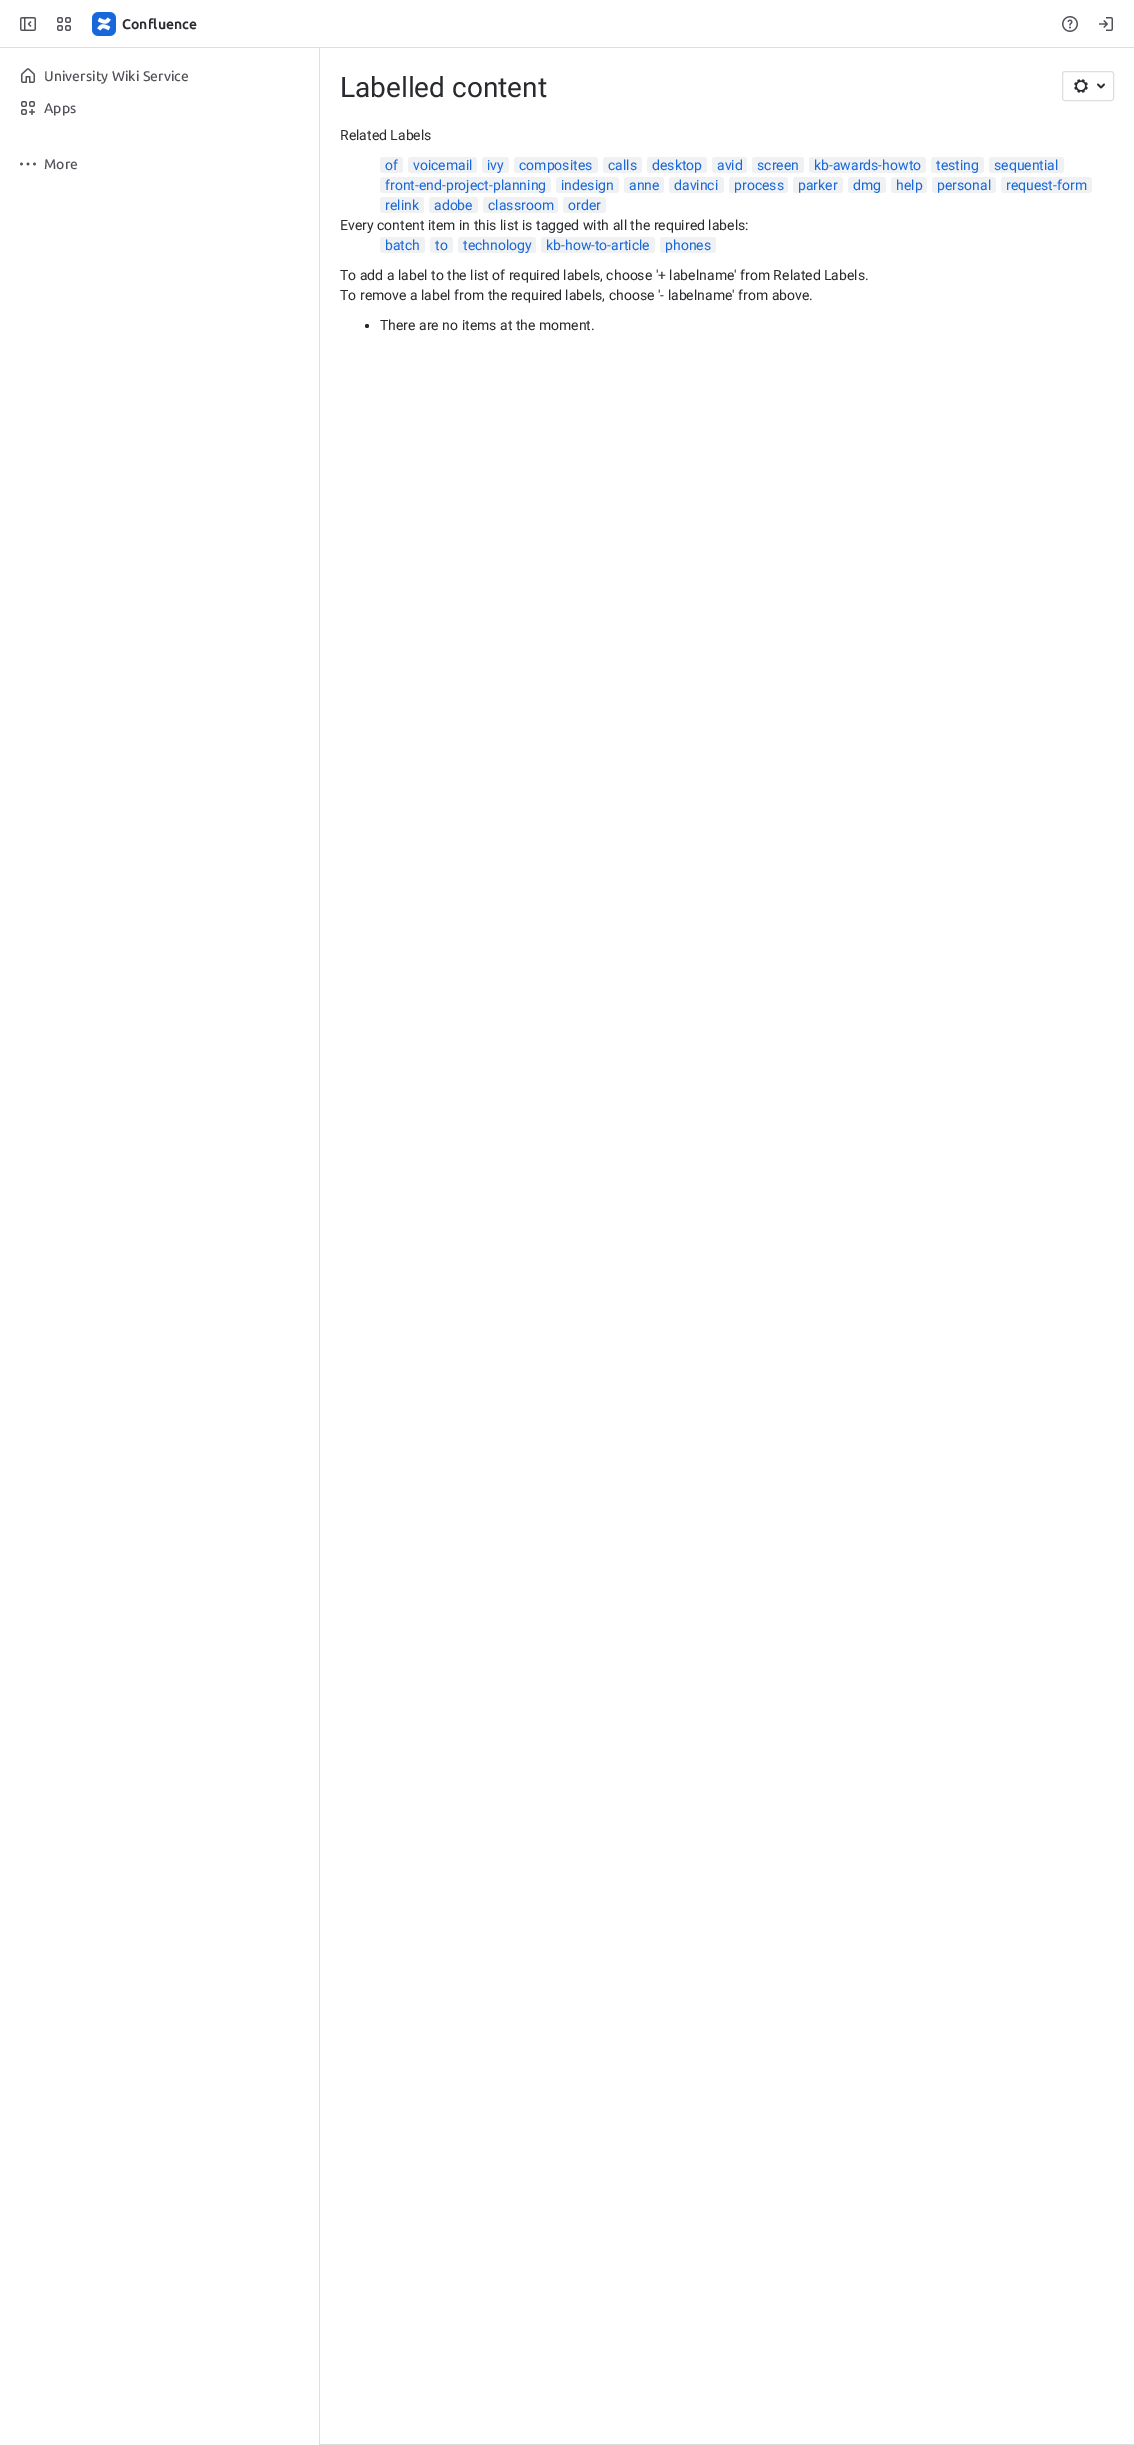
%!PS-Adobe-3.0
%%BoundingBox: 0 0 1134 2445
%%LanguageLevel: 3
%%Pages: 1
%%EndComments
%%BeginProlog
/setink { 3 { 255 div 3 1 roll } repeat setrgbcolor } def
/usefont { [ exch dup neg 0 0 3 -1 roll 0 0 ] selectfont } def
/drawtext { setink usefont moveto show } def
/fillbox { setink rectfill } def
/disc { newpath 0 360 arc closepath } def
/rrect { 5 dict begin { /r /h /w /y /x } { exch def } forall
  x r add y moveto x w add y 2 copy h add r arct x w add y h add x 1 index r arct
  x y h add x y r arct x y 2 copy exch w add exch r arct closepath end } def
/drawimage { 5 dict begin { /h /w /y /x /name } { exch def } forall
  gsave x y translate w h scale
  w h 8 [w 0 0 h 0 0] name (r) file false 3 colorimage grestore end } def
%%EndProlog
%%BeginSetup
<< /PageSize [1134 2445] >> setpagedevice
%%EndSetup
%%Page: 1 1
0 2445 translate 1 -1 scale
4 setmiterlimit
0 0 1134 2445 255 255 255 fillbox
0 47 1134 1 221 222 221 fillbox
(assets/img1.rgb) 20 17 16 14 drawimage
(assets/img2.rgb) 57 17 14 14 drawimage
(assets/img3.rgb) 92 12 24 24 drawimage
(Confluence) 122 29 /Ubuntu-Bold 14 41 42 46 drawtext
(assets/img4.rgb) 1062 16 16 16 drawimage
(assets/img5.rgb) 1099 17 14 14 drawimage
319 48 1 2397 221 222 221 fillbox
(assets/img6.rgb) 21 68 14 15 drawimage
(University Wiki Service) 44 81 /Ubuntu-Medium 14 80 82 88 drawtext
(assets/img7.rgb) 21 101 14 14 drawimage
(Apps) 44 113 /Ubuntu-Medium 14 80 82 88 drawtext
(assets/img8.rgb) 20 162 16 4 drawimage
(More) 44 169 /Ubuntu-Medium 14 80 82 88 drawtext
320 2444 814 1 221 222 221 fillbox
(Labelled content) 340 97 /Roboto-Regular 28 41 42 46 drawtext
221 222 221 setink
1062.5 71.5 51 29 2.5 rrect stroke
(assets/img9.rgb) 1074 79 14 14 drawimage
(assets/img10.rgb) 1097 83 8 6 drawimage
(Related Labels) 340 140 /Roboto-Regular 14 41 42 46 drawtext
240 241 242 setink
380 157 23 16 3 rrect fill
(of) 385 170 /Roboto-Regular 14 24 104 219 drawtext
240 241 242 setink
408 157 69 16 3 rrect fill
(voicemail) 413 170 /Roboto-Regular 14 24 104 219 drawtext
240 241 242 setink
482 157 27 16 3 rrect fill
(ivy) 487 170 /Roboto-Regular 14 24 104 219 drawtext
240 241 242 setink
514 157 84 16 3 rrect fill
(composites) 519 170 /Roboto-Regular 14 24 104 219 drawtext
240 241 242 setink
603 157 39 16 3 rrect fill
(calls) 608 170 /Roboto-Regular 14 24 104 219 drawtext
240 241 242 setink
647 157 60 16 3 rrect fill
(desktop) 652 170 /Roboto-Regular 14 24 104 219 drawtext
240 241 242 setink
712 157 35 16 3 rrect fill
(avid) 717 170 /Roboto-Regular 14 24 104 219 drawtext
240 241 242 setink
752 157 52 16 3 rrect fill
(screen) 757 170 /Roboto-Regular 14 24 104 219 drawtext
240 241 242 setink
809 157 117 16 3 rrect fill
(kb-awards-howto) 814 170 /Roboto-Regular 14 24 104 219 drawtext
240 241 242 setink
931 157 53 16 3 rrect fill
(testing) 936 170 /Roboto-Regular 14 24 104 219 drawtext
240 241 242 setink
989 157 75 16 3 rrect fill
(sequential) 994 170 /Roboto-Regular 14 24 104 219 drawtext
240 241 242 setink
380 177 171 16 3 rrect fill
(front-end-project-planning) 385 190 /Roboto-Regular 14 24 104 219 drawtext
240 241 242 setink
556 177 63 16 3 rrect fill
(indesign) 561 190 /Roboto-Regular 14 24 104 219 drawtext
240 241 242 setink
624 177 40 16 3 rrect fill
(anne) 629 190 /Roboto-Regular 14 24 104 219 drawtext
240 241 242 setink
669 177 55 16 3 rrect fill
(davinci) 674 190 /Roboto-Regular 14 24 104 219 drawtext
240 241 242 setink
729 177 59 16 3 rrect fill
(process) 734 190 /Roboto-Regular 14 24 104 219 drawtext
240 241 242 setink
793 177 50 16 3 rrect fill
(parker) 798 190 /Roboto-Regular 14 24 104 219 drawtext
240 241 242 setink
848 177 38 16 3 rrect fill
(dmg) 853 190 /Roboto-Regular 14 24 104 219 drawtext
240 241 242 setink
891 177 36 16 3 rrect fill
(help) 896 190 /Roboto-Regular 14 24 104 219 drawtext
240 241 242 setink
932 177 64 16 3 rrect fill
(personal) 937 190 /Roboto-Regular 14 24 104 219 drawtext
240 241 242 setink
1001 177 91 16 3 rrect fill
(request-form) 1006 190 /Roboto-Regular 14 24 104 219 drawtext
240 241 242 setink
380 197 44 16 3 rrect fill
(relink) 385 210 /Roboto-Regular 14 24 104 219 drawtext
240 241 242 setink
429 197 49 16 3 rrect fill
(adobe) 434 210 /Roboto-Regular 14 24 104 219 drawtext
240 241 242 setink
483 197 75 16 3 rrect fill
(classroom) 488 210 /Roboto-Regular 14 24 104 219 drawtext
240 241 242 setink
563 197 43 16 3 rrect fill
(order) 568 210 /Roboto-Regular 14 24 104 219 drawtext
(Every content item in this list is tagged with all the required labels:) 340 230 /Roboto-Regular 14 41 42 46 drawtext
240 241 242 setink
380 237 45 16 3 rrect fill
(batch) 385 250 /Roboto-Regular 14 24 104 219 drawtext
240 241 242 setink
430 237 23 16 3 rrect fill
(to) 435 250 /Roboto-Regular 14 24 104 219 drawtext
240 241 242 setink
458 237 78 16 3 rrect fill
(technology) 463 250 /Roboto-Regular 14 24 104 219 drawtext
240 241 242 setink
541 237 114 16 3 rrect fill
(kb-how-to-article) 546 250 /Roboto-Regular 14 24 104 219 drawtext
240 241 242 setink
660 237 56 16 3 rrect fill
(phones) 665 250 /Roboto-Regular 14 24 104 219 drawtext
(To add a label to the list of required labels, choose '+ labelname' from Related Labels.) 340 280 /Roboto-Regular 14 41 42 46 drawtext
(To remove a label from the required labels, choose '- labelname' from above.) 340 300 /Roboto-Regular 14 41 42 46 drawtext
367 326 2 disc fill
(There are no items at the moment.) 380 330 /Roboto-Regular 14 41 42 46 drawtext
showpage
%%EOF
